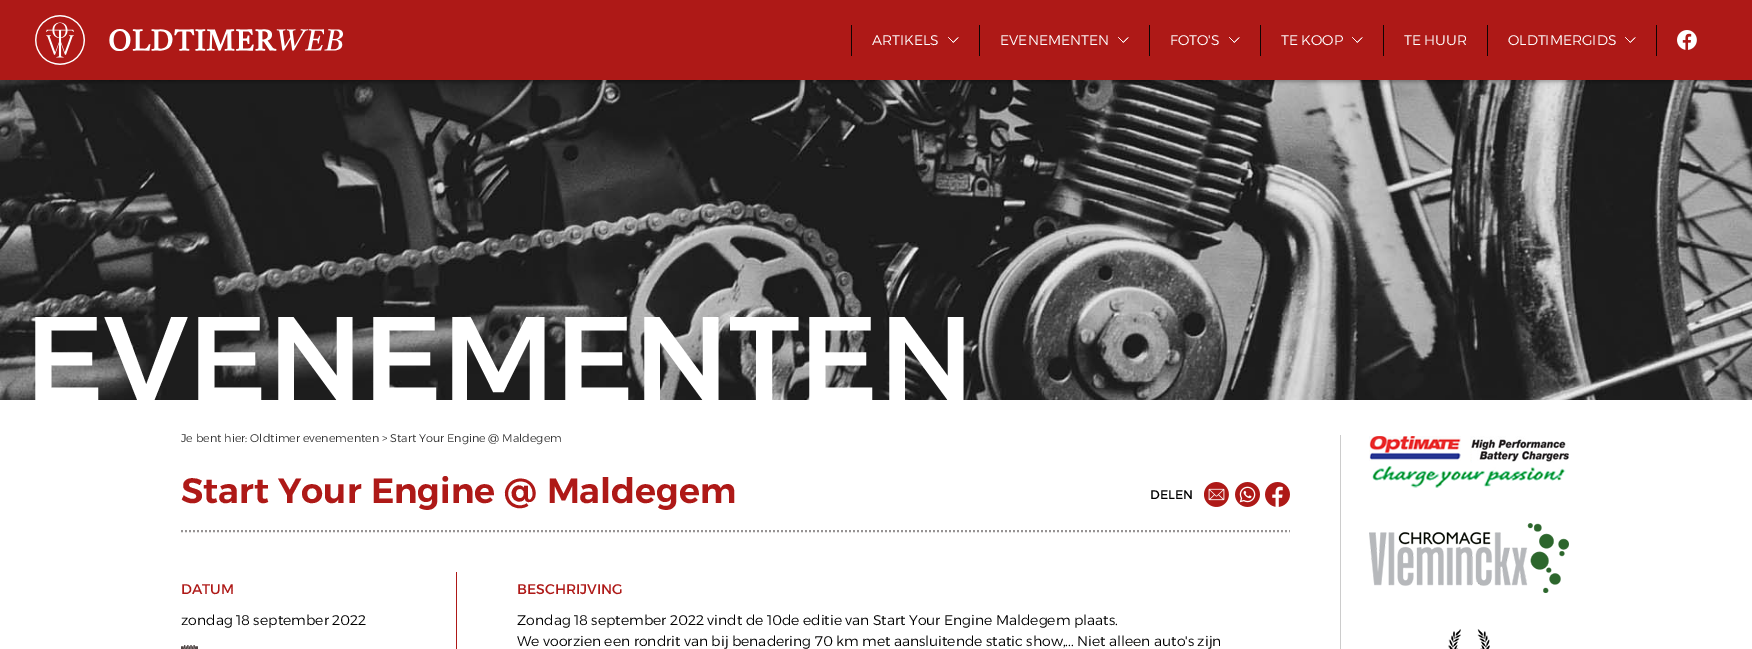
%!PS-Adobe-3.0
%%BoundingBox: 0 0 1752 649
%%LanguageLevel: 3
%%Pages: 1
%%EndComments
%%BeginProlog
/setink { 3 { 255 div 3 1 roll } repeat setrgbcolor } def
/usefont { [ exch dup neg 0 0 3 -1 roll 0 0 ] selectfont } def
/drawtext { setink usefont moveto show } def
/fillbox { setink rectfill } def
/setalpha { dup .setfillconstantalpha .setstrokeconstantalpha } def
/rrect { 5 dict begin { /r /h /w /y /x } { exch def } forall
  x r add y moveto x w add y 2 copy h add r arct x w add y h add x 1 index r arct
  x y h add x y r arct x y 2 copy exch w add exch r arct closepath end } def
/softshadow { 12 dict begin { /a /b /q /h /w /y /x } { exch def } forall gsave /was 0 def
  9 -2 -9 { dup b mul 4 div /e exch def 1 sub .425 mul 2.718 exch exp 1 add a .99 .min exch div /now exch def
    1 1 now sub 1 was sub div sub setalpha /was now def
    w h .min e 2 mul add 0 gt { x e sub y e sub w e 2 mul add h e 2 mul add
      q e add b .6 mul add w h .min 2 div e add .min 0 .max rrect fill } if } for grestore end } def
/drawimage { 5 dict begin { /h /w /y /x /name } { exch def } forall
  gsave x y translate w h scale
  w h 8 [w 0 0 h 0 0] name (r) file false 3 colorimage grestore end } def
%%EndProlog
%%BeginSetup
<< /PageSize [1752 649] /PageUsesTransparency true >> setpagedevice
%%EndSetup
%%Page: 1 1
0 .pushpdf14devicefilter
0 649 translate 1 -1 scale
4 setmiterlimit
0 0 1752 649 255 255 255 fillbox
(assets/img4.rgb) 0 80 1752 320 drawimage
0 0 0 setink
0 2 1752 80 0 2 0.3 softshadow
0 0 1752 80 174 25 23 fillbox
(assets/img1.rgb) 35 15 308 50 drawimage
851 25 1 31 16 4 3 fillbox
(ARTIKELS) 872 45 /Alexandria-Light 14 255 255 255 drawtext
(assets/img2.rgb) 948 37 11 6 drawimage
979 25 1 31 16 4 3 fillbox
(EVENEMENTEN) 1000 45 /Alexandria-Light 14 255 255 255 drawtext
(assets/img2.rgb) 1118 37 11 6 drawimage
1149 25 1 31 16 4 3 fillbox
(FOTO'S) 1170 45 /Alexandria-Light 14 255 255 255 drawtext
(assets/img2.rgb) 1229 37 11 6 drawimage
1260 25 1 31 16 4 3 fillbox
(TE KOOP) 1281 45 /Alexandria-Light 14 255 255 255 drawtext
(assets/img2.rgb) 1352 37 11 6 drawimage
1383 25 1 31 16 4 3 fillbox
(TE HUUR) 1404 45 /Alexandria-Light 14 255 255 255 drawtext
1487 25 1 31 16 4 3 fillbox
(OLDTIMERGIDS) 1508 45 /Alexandria-Light 14 255 255 255 drawtext
(assets/img2.rgb) 1625 37 11 6 drawimage
1656 25 1 31 16 4 3 fillbox
(assets/img3.rgb) 1677 30 20 20 drawimage
(EVENEMENTEN) 25 401 /Alexandria-Medium 120 255 255 255 drawtext
(Je bent hier: Oldtimer evenementen > Start Your Engine @ Maldegem) 181 442 /Alexandria-Light 11.2 51 51 51 drawtext
150 147 147 setink
2 setlinewidth
[2 2] 0 setdash
181 531 moveto 1290 531 lineto stroke
(Start Your Engine @ Maldegem) 181 503 /Alexandria-SemiBold 35 174 25 23 drawtext
(DELEN) 1150 499 /Alexandria-Regular 12.5 0 0 0 drawtext
(assets/img5.rgb) 1204 482 25 25 drawimage
(assets/img6.rgb) 1235 482 25 25 drawimage
(assets/img7.rgb) 1265 482 25 25 drawimage
(DATUM) 181 594 /Alexandria-Regular 14 174 25 23 drawtext
(zondag 18 september 2022) 181 625 /Alexandria-Light 14 0 0 0 drawtext
(assets/img8.rgb) 181 645 17 4 drawimage
(assets/img9.rgb) 181 645 17 4 drawimage
456 572 1 77 174 25 23 fillbox
(BESCHRIJVING) 517 594 /Alexandria-Regular 14 174 25 23 drawtext
(Zondag 18 september 2022 vindt de 10de editie van Start Your Engine Maldegem plaats.) 517 625 /Alexandria-Light 14 0 0 0 drawtext
(We voorzien een rondrit van bij benadering 70 km met aansluitende static show,... Niet alleen auto's zijn) 517 646 /Alexandria-Light 14 0 0 0 drawtext
1340 435 1 214 204 204 204 fillbox
(assets/img10.rgb) 1369 436 200 52 drawimage
(assets/img11.rgb) 1369 523 200 70 drawimage
(assets/img12.rgb) 1448 629 42 20 drawimage
.poppdf14devicefilter showpage
%%EOF
